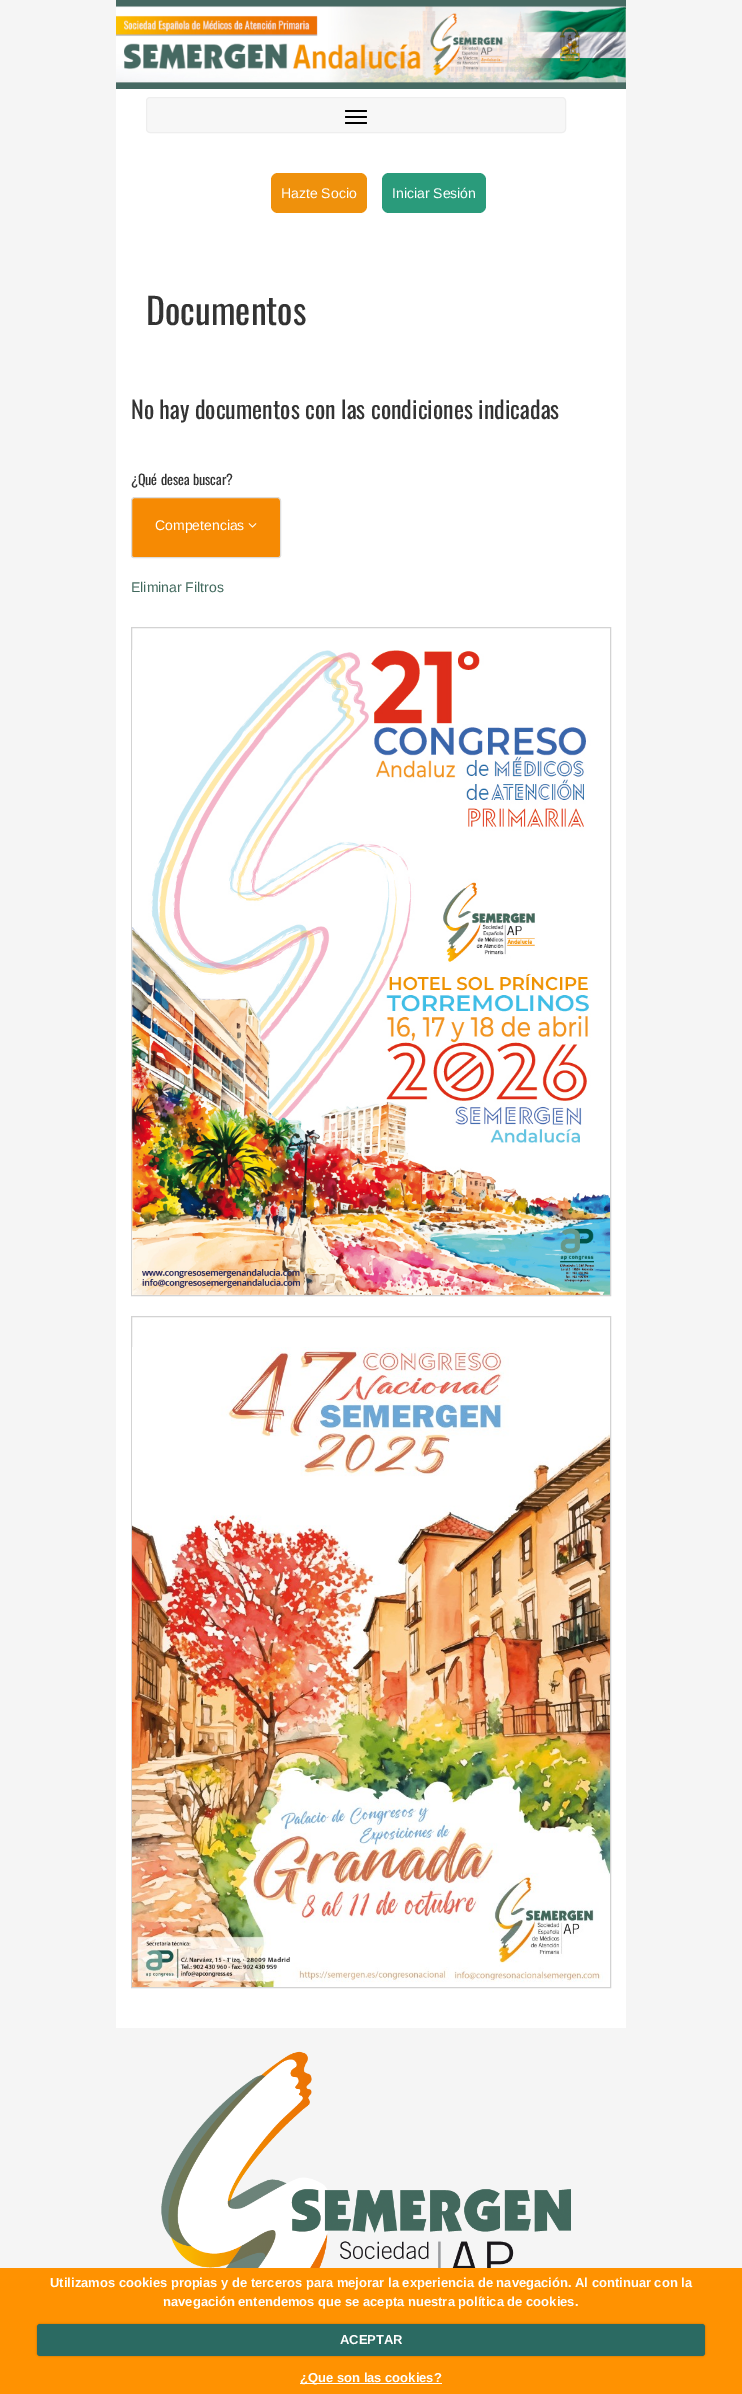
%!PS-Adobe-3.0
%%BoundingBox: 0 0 742 2394
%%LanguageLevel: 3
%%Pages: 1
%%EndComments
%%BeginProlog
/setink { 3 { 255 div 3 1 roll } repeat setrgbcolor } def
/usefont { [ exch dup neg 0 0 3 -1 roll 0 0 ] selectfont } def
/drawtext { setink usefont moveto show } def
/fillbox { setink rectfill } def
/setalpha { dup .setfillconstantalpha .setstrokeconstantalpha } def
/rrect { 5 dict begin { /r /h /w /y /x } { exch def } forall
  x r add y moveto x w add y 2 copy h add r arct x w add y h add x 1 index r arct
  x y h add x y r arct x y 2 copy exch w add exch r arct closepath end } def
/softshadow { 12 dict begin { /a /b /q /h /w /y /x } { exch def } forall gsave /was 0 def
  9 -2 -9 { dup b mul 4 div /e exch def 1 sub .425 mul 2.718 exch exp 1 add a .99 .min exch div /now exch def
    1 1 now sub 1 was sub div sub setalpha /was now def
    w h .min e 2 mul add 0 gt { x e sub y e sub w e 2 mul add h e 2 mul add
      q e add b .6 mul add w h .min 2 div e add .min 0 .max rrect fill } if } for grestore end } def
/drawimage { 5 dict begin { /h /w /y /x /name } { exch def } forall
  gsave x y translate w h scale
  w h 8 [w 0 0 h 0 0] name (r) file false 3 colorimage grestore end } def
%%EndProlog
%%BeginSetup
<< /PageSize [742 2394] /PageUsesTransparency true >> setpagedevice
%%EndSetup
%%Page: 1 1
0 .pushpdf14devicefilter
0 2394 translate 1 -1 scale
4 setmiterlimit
0 0 742 2394 245 245 245 fillbox
(assets/img1.rgb) 116 0 510 89 drawimage
116 89 510 1939 255 255 255 fillbox
247 247 247 setink
146.5 97.5 419 35 3.5 rrect gsave fill grestore
238 238 238 setink
stroke
0 0 0 setink
345 110 22 2 1 rrect fill
345 116 22 2 1 rrect fill
345 122 22 2 1 rrect fill
239 145 12 setink
271 173 96 40 7 rrect fill
(Hazte Socio) 281 198 /LiberationSans-Regular 14 255 255 255 drawtext
42 155 123 setink
382 173 104 40 7 rrect fill
(Iniciar Sesión) 392 198 /LiberationSans-Regular 14 255 255 255 drawtext
(Documentos) 146 325 /Oswald-Regular 36 51 51 51 drawtext
(No hay documentos con las condiciones indicadas) 131 419 /Oswald-Regular 24 51 51 51 drawtext
(¿Qué desea buscar?) 131 485 /Oswald-Regular 14 51 51 51 drawtext
246 138 3 setink
135 497.5 moveto 277 497.5 lineto 279 497.5 280.5 499 280.5 501 curveto 280.5 555.5 lineto 280.5 556.5 279.5 557.5 278.5 557.5 curveto 133.5 557.5 lineto 132.5 557.5 131.5 556.5 131.5 555.5 curveto 131.5 501 lineto 131.5 499 133 497.5 135 497.5 curveto closepath gsave fill grestore
221 221 221 setink
stroke
(Competencias) 155 530 /LiberationSans-Regular 14 255 255 255 drawtext
(assets/img2.rgb) 248 523 9 5 drawimage
(Eliminar Filtros) 131 592 /LiberationSans-Regular 14 65 105 93 drawtext
211 211 211 setink
131.5 627.5 479 668 rectstroke
(assets/img3.rgb) 132 650 478 645 drawimage
131.5 1316.5 479 671 rectstroke
(assets/img4.rgb) 132 1347 478 640 drawimage
(assets/img5.rgb) 161 2051 410 217 drawimage
0 2268 742 126 255 146 1 fillbox
(Utilizamos cookies propias y de terceros para mejorar la experiencia de navegación. Al continuar con la) 50 2287 /LiberationSans-Bold 13 255 255 255 drawtext
(navegación entendemos que se acepta nuestra política de cookies.) 163 2306 /LiberationSans-Bold 13 255 255 255 drawtext
0 0 0 setink
37 2324 668 32 3 1 0.25 softshadow
43 106 98 setink
37 2324 668 32 3 rrect fill
(ACEPTAR) 340 2344 /LiberationSans-Bold 13 255 255 255 drawtext
300 2383 142 1 255 255 255 fillbox
(¿Que son las cookies?) 300 2382 /LiberationSans-Bold 13 255 255 255 drawtext
.poppdf14devicefilter showpage
%%EOF
